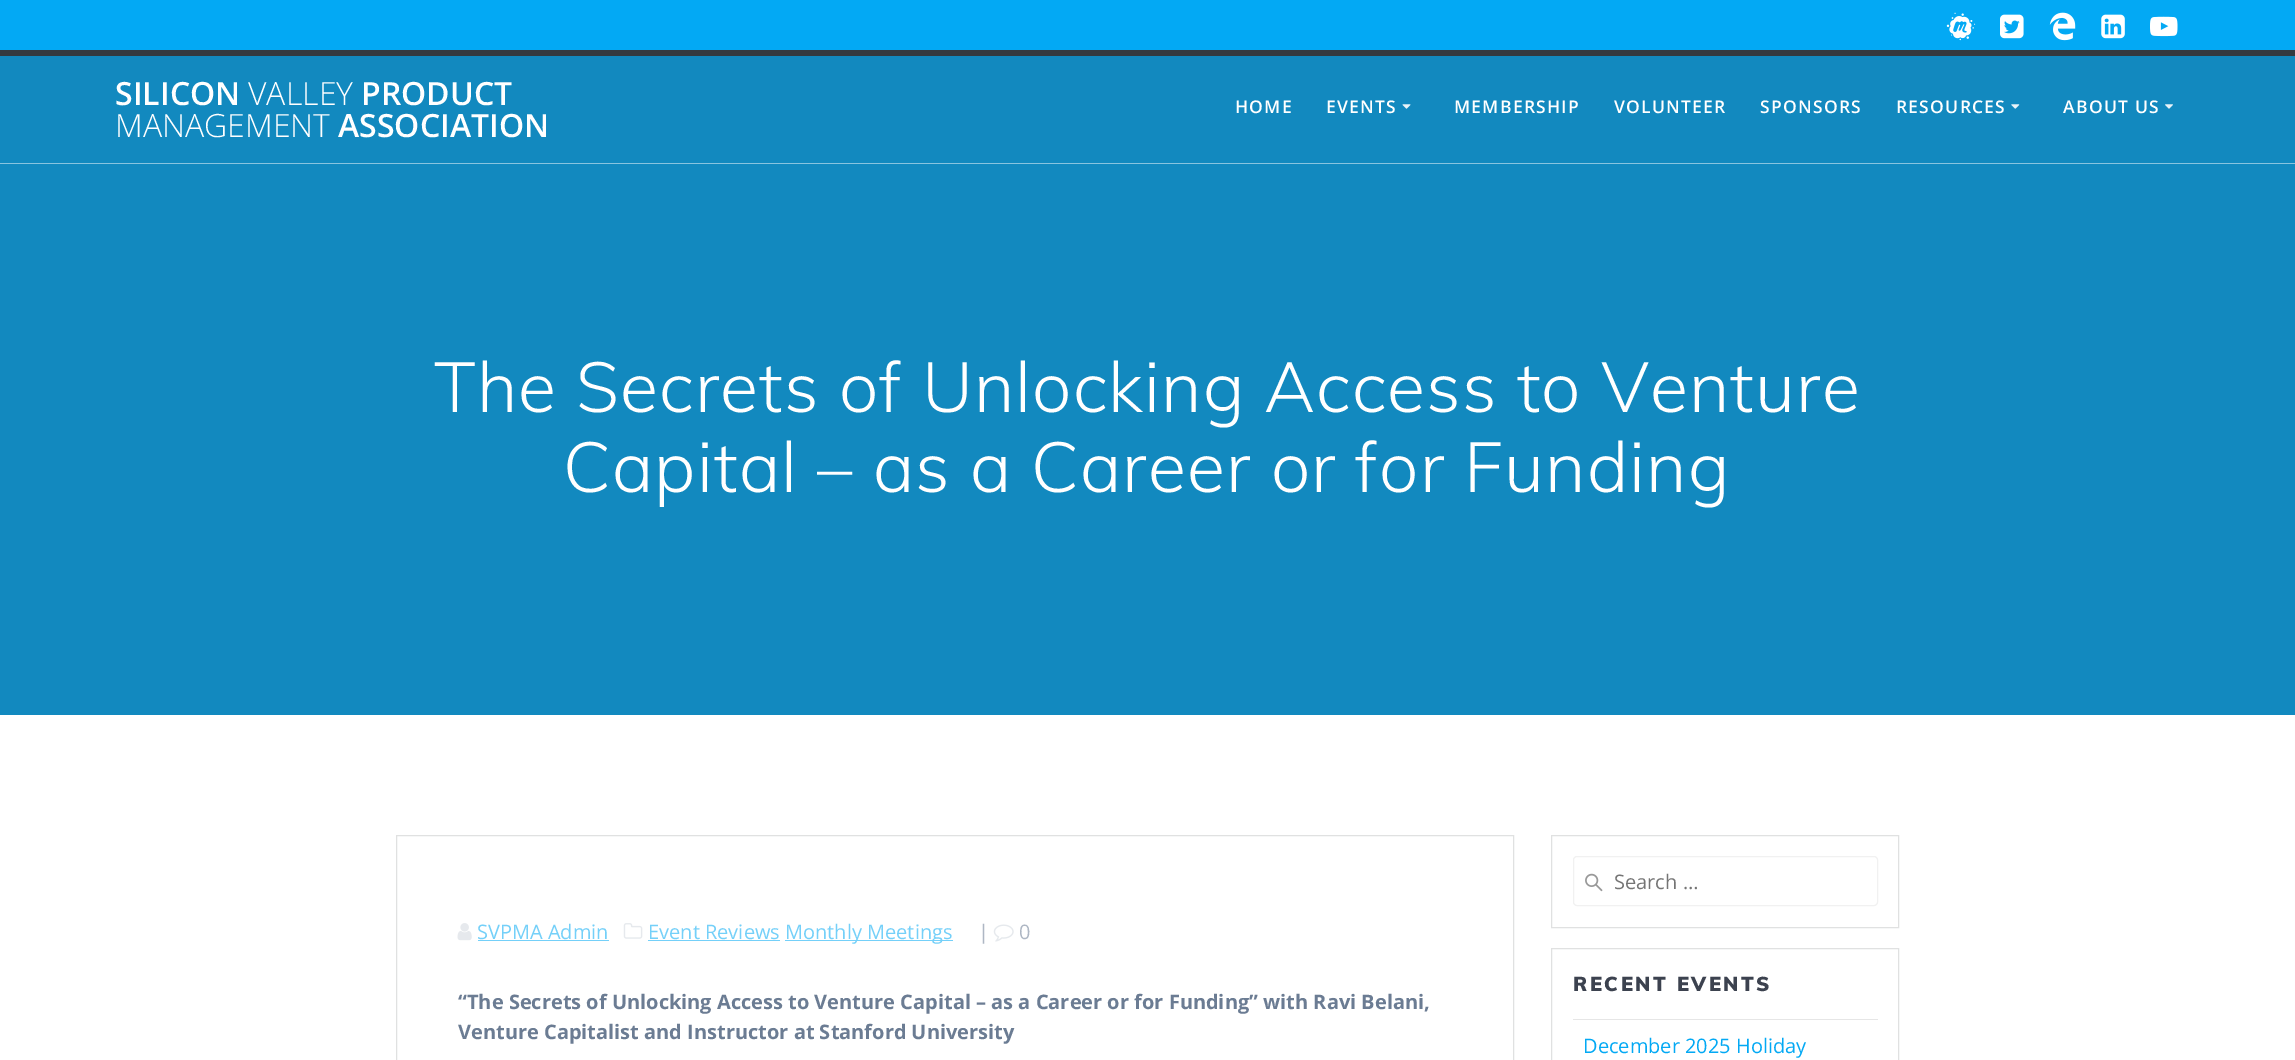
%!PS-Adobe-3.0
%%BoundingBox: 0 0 2295 1060
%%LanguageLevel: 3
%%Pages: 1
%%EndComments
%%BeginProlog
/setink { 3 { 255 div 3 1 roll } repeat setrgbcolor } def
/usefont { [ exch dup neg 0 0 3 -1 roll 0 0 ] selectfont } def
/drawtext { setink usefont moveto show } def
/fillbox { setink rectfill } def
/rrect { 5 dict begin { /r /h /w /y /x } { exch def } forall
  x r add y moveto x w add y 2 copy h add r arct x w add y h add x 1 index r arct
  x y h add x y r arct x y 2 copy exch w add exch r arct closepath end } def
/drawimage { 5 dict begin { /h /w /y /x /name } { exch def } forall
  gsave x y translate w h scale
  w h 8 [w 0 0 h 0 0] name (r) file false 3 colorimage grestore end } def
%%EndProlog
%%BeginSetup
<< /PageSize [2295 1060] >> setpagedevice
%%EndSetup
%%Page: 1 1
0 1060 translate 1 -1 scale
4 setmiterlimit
0 0 2295 1060 18 137 191 fillbox
0 0 2295 50 3 169 244 fillbox
0 50 2295 6 52 58 64 fillbox
(assets/img1.rgb) 1946 12 30 29 drawimage
(assets/img2.rgb) 2000 14 24 25 drawimage
(assets/img3.rgb) 2049 12 27 29 drawimage
(assets/img4.rgb) 2101 14 24 25 drawimage
(assets/img5.rgb) 2150 16 28 21 drawimage
0 163 2295 1 137 196 223 fillbox
(SILICON) 115 105 /OpenSans-SemiBold 32 255 255 255 drawtext
(VALLEY) 248 105 /OpenSans-Light 32 255 255 255 drawtext
(PRODUCT) 361 105 /OpenSans-SemiBold 32 255 255 255 drawtext
(MANAGEMENT) 115 137 /OpenSans-Light 32 255 255 255 drawtext
(ASSOCIATION) 338 137 /OpenSans-SemiBold 32 255 255 255 drawtext
/OpenSans-SemiBold 17.5 usefont
1235 113 moveto 1.25 0 (HOME) ashow
1326 113 moveto 1.25 0 (EVENTS) ashow
(assets/img6.rgb) 1402 104 9 5 drawimage
1454 113 moveto 1.25 0 (MEMBERSHIP) ashow
1614 113 moveto 1.25 0 (VOLUNTEER) ashow
1760 113 moveto 1.25 0 (SPONSORS) ashow
1896 113 moveto 1.25 0 (RESOURCES) ashow
(assets/img7.rgb) 2011 104 9 5 drawimage
2063 113 moveto 1.25 0 (ABOUT US) ashow
(assets/img8.rgb) 2165 104 8 5 drawimage
/Muli-Light 70 usefont
434 412 moveto 1.1 0 (The Secrets of Unlocking Access to Venture) ashow
563 492 moveto 1.1 0 (Capital – as a Career or for Funding) ashow
0 715 2295 345 255 255 255 fillbox
224 225 225 setink
396.5 835.5 1117 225 rectstroke
(assets/img9.rgb) 457 923 15 18 drawimage
(SVPMA Admin) 477 939 /OpenSans-Regular 20 116 208 249 drawtext
478 940 131 1 116 208 249 fillbox
(assets/img10.rgb) 623 923 20 16 drawimage
(Event Reviews) 648 939 /OpenSans-Regular 20 116 208 249 drawtext
648 940 132 1 116 208 249 fillbox
785 940 168 1 116 208 249 fillbox
(Monthly Meetings) 785 939 /OpenSans-Regular 20 116 208 249 drawtext
(|) 978 939 /OpenSans-Regular 20 174 183 196 drawtext
(assets/img11.rgb) 993 924 21 18 drawimage
(0) 1019 939 /OpenSans-Regular 20 174 183 196 drawtext
(“The Secrets of Unlocking Access to Venture Capital – as a Career or for Funding” with Ravi Belani,) 458 1009 /OpenSans-Bold 20 107 124 147 drawtext
(Venture Capitalist and Instructor at Stanford University) 458 1039 /OpenSans-Bold 20 107 124 147 drawtext
224 225 225 setink
1551.5 835.5 347 92 rectstroke
(assets/img12.rgb) 1585 873 18 19 drawimage
241 241 241 setink
1573.5 856.5 304 49 3.5 rrect stroke
(Search …) 1614 889 /OpenSans-Regular 20 117 117 117 drawtext
224 225 225 setink
1551.5 948.5 347 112 rectstroke
/Muli-Black 20 usefont
60 66 79 setink
1573 991 moveto 2.5 0 (RECENT EVENTS) ashow
1573 1019 305 1 230 230 230 fillbox
(December 2025 Holiday) 1583 1053 /OpenSans-Regular 20 3 169 244 drawtext
showpage
%%EOF
